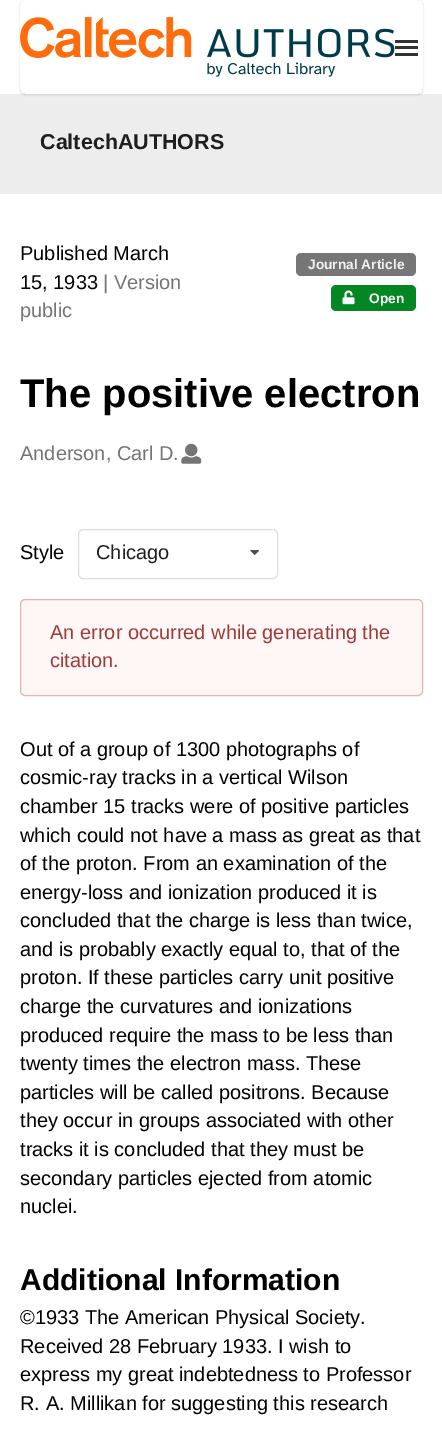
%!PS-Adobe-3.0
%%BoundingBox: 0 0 442 1431
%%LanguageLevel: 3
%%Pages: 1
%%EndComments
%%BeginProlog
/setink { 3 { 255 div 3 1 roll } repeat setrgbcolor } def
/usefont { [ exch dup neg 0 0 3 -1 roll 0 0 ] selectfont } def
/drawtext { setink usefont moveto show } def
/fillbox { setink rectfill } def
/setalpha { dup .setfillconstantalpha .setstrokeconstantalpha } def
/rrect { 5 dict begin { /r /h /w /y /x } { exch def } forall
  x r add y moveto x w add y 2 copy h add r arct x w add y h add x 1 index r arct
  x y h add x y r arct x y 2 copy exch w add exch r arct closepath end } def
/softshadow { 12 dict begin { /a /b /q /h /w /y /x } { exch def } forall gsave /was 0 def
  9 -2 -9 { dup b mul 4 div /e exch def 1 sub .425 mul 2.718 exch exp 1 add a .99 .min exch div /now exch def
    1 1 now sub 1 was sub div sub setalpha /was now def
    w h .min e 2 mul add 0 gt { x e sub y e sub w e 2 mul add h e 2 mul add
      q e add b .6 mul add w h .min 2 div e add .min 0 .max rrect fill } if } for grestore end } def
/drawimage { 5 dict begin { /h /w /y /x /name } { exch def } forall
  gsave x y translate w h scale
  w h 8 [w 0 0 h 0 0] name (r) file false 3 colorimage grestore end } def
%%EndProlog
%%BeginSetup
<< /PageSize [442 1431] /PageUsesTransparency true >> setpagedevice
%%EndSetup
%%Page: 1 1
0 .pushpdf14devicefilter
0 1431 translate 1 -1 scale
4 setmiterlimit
0 0 442 1431 255 255 255 fillbox
0 94 442 100 237 237 237 fillbox
gsave
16 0 moveto 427 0 lineto 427 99 lineto 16 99 lineto closepath 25 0 moveto 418 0 lineto 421 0 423 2 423 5 curveto 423 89 lineto 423 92 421 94 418 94 curveto 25 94 lineto 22 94 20 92 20 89 curveto 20 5 lineto 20 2 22 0 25 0 curveto closepath eoclip newpath
34 36 38 setink
20 1 403 94 5 1 0.15 softshadow
grestore
(assets/img1.rgb) 20 17 375 60 drawimage
395 46 23 3 51 51 51 fillbox
395 40 23 3 51 51 51 fillbox
395 53 23 3 51 51 51 fillbox
(CaltechAUTHORS) 40 149 /LiberationSans-Bold 21.5 31 31 31 drawtext
(Published March) 20 260 /LiberationSans-Regular 20 0 0 0 drawtext
(15, 1933) 20 289 /LiberationSans-Regular 20 0 0 0 drawtext
(| Version) 103 289 /LiberationSans-Regular 20 117 117 117 drawtext
(public) 20 317 /LiberationSans-Regular 20 117 117 117 drawtext
118 118 118 setink
296 253 120 23 5 rrect fill
(Journal Article) 308 269 /LiberationSans-Bold 13.75 241 241 241 drawtext
4 134 34 setink
331 285 85 26 5 rrect fill
(assets/img2.rgb) 342 290 13 15 drawimage
(Open) 369 303 /LiberationSans-Bold 13.75 255 255 255 drawtext
(The positive electron) 20 407 /LiberationSans-Bold 40 0 0 0 drawtext
(Anderson, Carl D.) 20 460 /LiberationSans-Regular 20 117 117 117 drawtext
(assets/img3.rgb) 181 443 21 21 drawimage
(Style) 20 559 /LiberationSans-Regular 20 0 0 0 drawtext
222 222 222 setink
78.5 529.5 199 49 4.5 rrect stroke
(Chicago) 96 559 /LiberationSans-Regular 20 31 31 31 drawtext
(assets/img4.rgb) 250 550 9 5 drawimage
255 246 246 setink
20.5 599.5 402 96 4.5 rrect gsave fill grestore
224 180 180 setink
stroke
(An error occurred while generating the) 50 639 /LiberationSans-Regular 20 159 58 56 drawtext
(citation.) 50 667 /LiberationSans-Regular 20 159 58 56 drawtext
(Out of a group of 1300 photographs of) 20 756 /LiberationSans-Regular 20 0 0 0 drawtext
(cosmic-ray tracks in a vertical Wilson) 20 784 /LiberationSans-Regular 20 0 0 0 drawtext
(chamber 15 tracks were of positive particles) 20 813 /LiberationSans-Regular 20 0 0 0 drawtext
(which could not have a mass as great as that) 20 842 /LiberationSans-Regular 20 0 0 0 drawtext
(of the proton. From an examination of the) 20 870 /LiberationSans-Regular 20 0 0 0 drawtext
(energy-loss and ionization produced it is) 20 899 /LiberationSans-Regular 20 0 0 0 drawtext
(concluded that the charge is less than twice,) 20 927 /LiberationSans-Regular 20 0 0 0 drawtext
(and is probably exactly equal to, that of the) 20 956 /LiberationSans-Regular 20 0 0 0 drawtext
(proton. If these particles carry unit positive) 20 984 /LiberationSans-Regular 20 0 0 0 drawtext
(charge the curvatures and ionizations) 20 1013 /LiberationSans-Regular 20 0 0 0 drawtext
(produced require the mass to be less than) 20 1042 /LiberationSans-Regular 20 0 0 0 drawtext
(twenty times the electron mass. These) 20 1070 /LiberationSans-Regular 20 0 0 0 drawtext
(particles will be called positrons. Because) 20 1099 /LiberationSans-Regular 20 0 0 0 drawtext
(they occur in groups associated with other) 20 1127 /LiberationSans-Regular 20 0 0 0 drawtext
(tracks it is concluded that they must be) 20 1156 /LiberationSans-Regular 20 0 0 0 drawtext
(secondary particles ejected from atomic) 20 1185 /LiberationSans-Regular 20 0 0 0 drawtext
(nuclei.) 20 1213 /LiberationSans-Regular 20 0 0 0 drawtext
(Additional Information) 20 1290 /LiberationSans-Bold 30 0 0 0 drawtext
(©1933 The American Physical Society.) 20 1324 /LiberationSans-Regular 20 0 0 0 drawtext
(Received 28 February 1933. I wish to) 20 1353 /LiberationSans-Regular 20 0 0 0 drawtext
(express my great indebtedness to Professor) 20 1381 /LiberationSans-Regular 20 0 0 0 drawtext
(R. A. Millikan for suggesting this research) 20 1410 /LiberationSans-Regular 20 0 0 0 drawtext
.poppdf14devicefilter showpage
%%EOF
